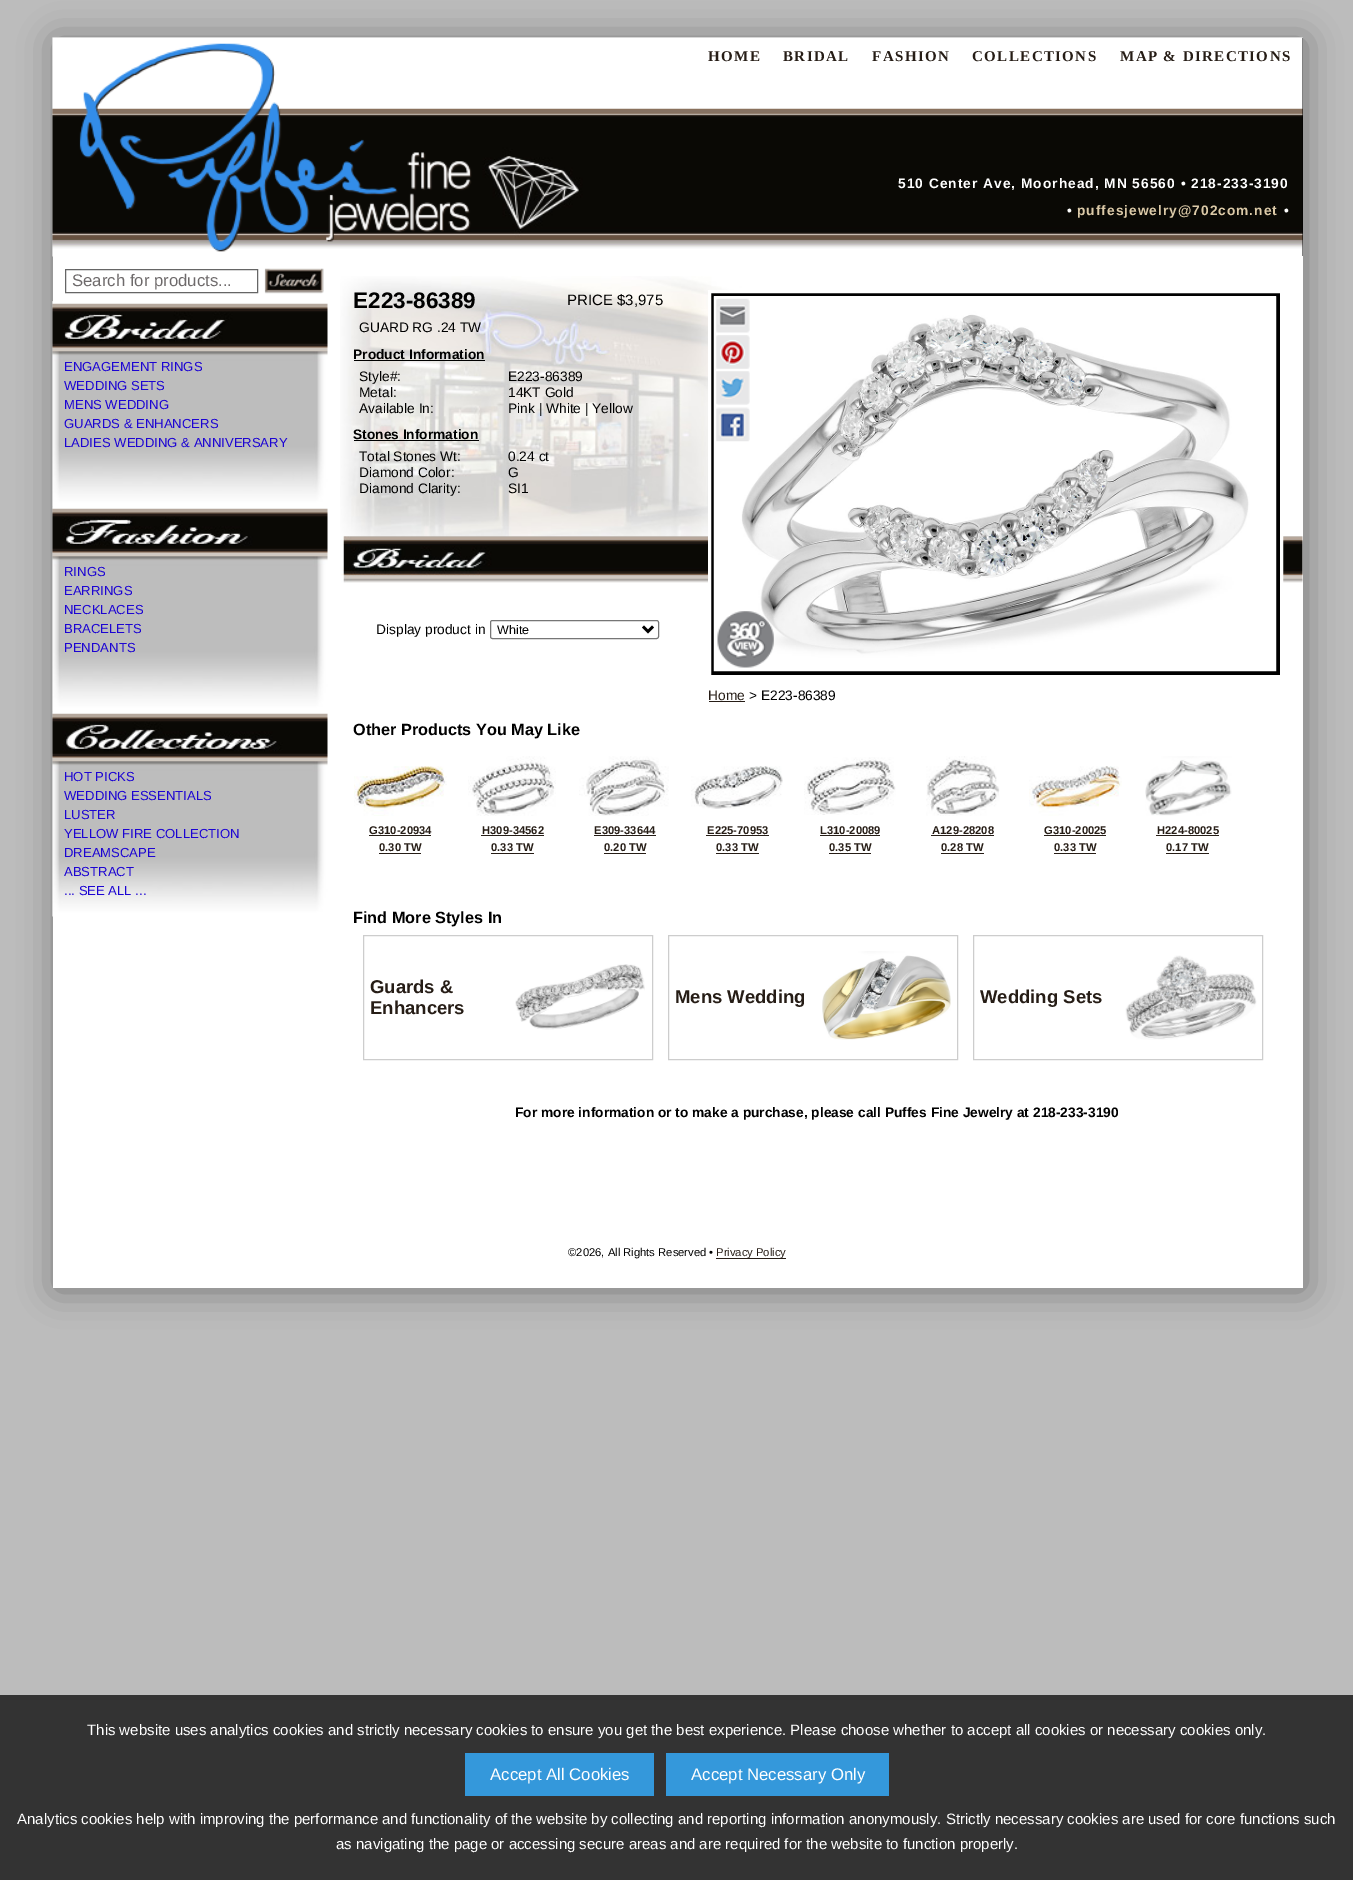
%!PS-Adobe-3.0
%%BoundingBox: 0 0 1353 1880
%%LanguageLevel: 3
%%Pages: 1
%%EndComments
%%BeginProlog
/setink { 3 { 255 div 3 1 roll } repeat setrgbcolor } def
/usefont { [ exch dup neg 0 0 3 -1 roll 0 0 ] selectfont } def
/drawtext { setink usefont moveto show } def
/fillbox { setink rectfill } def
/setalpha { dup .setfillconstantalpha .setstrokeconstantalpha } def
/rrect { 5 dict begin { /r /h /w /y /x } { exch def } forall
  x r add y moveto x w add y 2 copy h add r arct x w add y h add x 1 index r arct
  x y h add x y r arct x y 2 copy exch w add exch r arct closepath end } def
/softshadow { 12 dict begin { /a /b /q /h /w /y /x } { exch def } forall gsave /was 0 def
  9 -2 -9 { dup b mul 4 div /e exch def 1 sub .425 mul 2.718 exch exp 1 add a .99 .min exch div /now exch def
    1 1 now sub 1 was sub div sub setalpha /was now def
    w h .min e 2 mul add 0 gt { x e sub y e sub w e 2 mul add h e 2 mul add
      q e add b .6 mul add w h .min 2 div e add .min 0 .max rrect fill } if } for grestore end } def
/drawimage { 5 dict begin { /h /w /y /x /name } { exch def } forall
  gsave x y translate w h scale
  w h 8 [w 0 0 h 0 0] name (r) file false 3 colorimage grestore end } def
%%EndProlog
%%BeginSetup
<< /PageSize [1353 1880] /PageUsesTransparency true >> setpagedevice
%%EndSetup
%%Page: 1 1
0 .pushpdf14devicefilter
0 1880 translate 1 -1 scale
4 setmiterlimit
0 0 1353 1880 188 188 188 fillbox
119 119 119 setink
55 40 1250 1250 0 17.5 1 softshadow
53 256 1250 1032 255 255 255 fillbox
1302 38 1 218 0 0 0 fillbox
(assets/img1.rgb) 52 37 1251 220 drawimage
(assets/img2.rgb) 79 43 393 209 drawimage
/LiberationSerif-Bold 15 usefont
38 29 22 setink
708 61 moveto 1.4 0 (HOME) ashow
783 61 moveto 1.4 0 (BRIDAL) ashow
872 61 moveto 1.4 0 (FASHION) ashow
972 61 moveto 1.4 0 (COLLECTIONS) ashow
1120 61 moveto 1.4 0 (MAP & DIRECTIONS) ashow
/LiberationSans-Bold 13.75 usefont
255 255 255 setink
898 188 moveto 1 0 (510 Center Ave, Moorhead, MN 56560 • 218-233-3190) ashow
1067 215 moveto 1 0 (•) ashow
219 201 167 setink
1077 215 moveto 1 0 (puffesjewelry@702com.net) ashow
255 255 255 setink
1284 215 moveto 1 0 (•) ashow
102 102 102 setink
65.5 269.5 192 23 rectstroke
(Search for products...) 72 286 /LiberationSans-Regular 16.75 110 106 107 drawtext
(assets/img3.rgb) 264 268 60 26 drawimage
(assets/img4.rgb) 52 301 276 206 drawimage
(ENGAGEMENT RINGS) 64 371 /LiberationSans-Regular 13.1 28 4 211 drawtext
(WEDDING SETS) 64 390 /LiberationSans-Regular 13.1 28 4 211 drawtext
(MENS WEDDING) 64 409 /LiberationSans-Regular 13.1 28 4 211 drawtext
(GUARDS & ENHANCERS) 64 428 /LiberationSans-Regular 13.1 28 4 211 drawtext
(LADIES WEDDING & ANNIVERSARY) 64 447 /LiberationSans-Regular 13.1 28 4 211 drawtext
(assets/img5.rgb) 52 506 276 206 drawimage
(RINGS) 64 576 /LiberationSans-Regular 13.1 28 4 211 drawtext
(EARRINGS) 64 595 /LiberationSans-Regular 13.1 28 4 211 drawtext
(NECKLACES) 64 614 /LiberationSans-Regular 13.1 28 4 211 drawtext
(BRACELETS) 64 633 /LiberationSans-Regular 13.1 28 4 211 drawtext
(PENDANTS) 64 652 /LiberationSans-Regular 13.1 28 4 211 drawtext
(assets/img6.rgb) 52 711 276 206 drawimage
(HOT PICKS) 64 781 /LiberationSans-Regular 13.1 28 4 211 drawtext
(WEDDING ESSENTIALS) 64 800 /LiberationSans-Regular 13.1 28 4 211 drawtext
(LUSTER) 64 819 /LiberationSans-Regular 13.1 28 4 211 drawtext
(YELLOW FIRE COLLECTION) 64 838 /LiberationSans-Regular 13.1 28 4 211 drawtext
(DREAMSCAPE) 64 857 /LiberationSans-Regular 13.1 28 4 211 drawtext
(ABSTRACT) 64 876 /LiberationSans-Regular 13.1 28 4 211 drawtext
(... SEE ALL ...) 64 895 /LiberationSans-Regular 13.1 28 4 211 drawtext
(assets/img7.rgb) 340 276 963 307 drawimage
(E223-86389) 353 308 /LiberationSans-Bold 22.5 0 0 0 drawtext
(PRICE $3,975) 567 305 /LiberationSans-Regular 15 0 0 0 drawtext
(GUARD RG .24 TW) 359 332 /LiberationSans-Regular 13.75 0 0 0 drawtext
(Product Information) 353 359 /LiberationSans-Bold 13.75 0 0 0 drawtext
354 360 131 1 0 0 0 fillbox
(Style#:) 359 381 /LiberationSans-Regular 13.75 0 0 0 drawtext
(E223-86389) 508 381 /LiberationSans-Regular 13.75 0 0 0 drawtext
(Metal:) 359 397 /LiberationSans-Regular 13.75 0 0 0 drawtext
(14KT Gold) 508 397 /LiberationSans-Regular 13.75 0 0 0 drawtext
(Available In:) 359 413 /LiberationSans-Regular 13.75 0 0 0 drawtext
(Pink | White | Yellow) 508 413 /LiberationSans-Regular 13.75 0 0 0 drawtext
(Stones Information) 353 439 /LiberationSans-Bold 13.75 0 0 0 drawtext
354 440 125 1 0 0 0 fillbox
(Total Stones Wt:) 359 461 /LiberationSans-Regular 13.75 0 0 0 drawtext
(0.24 ct) 508 461 /LiberationSans-Regular 13.75 0 0 0 drawtext
(Diamond Color:) 359 477 /LiberationSans-Regular 13.75 0 0 0 drawtext
(G) 508 477 /LiberationSans-Regular 13.75 0 0 0 drawtext
(Diamond Clarity:) 359 493 /LiberationSans-Regular 13.75 0 0 0 drawtext
(SI1) 508 493 /LiberationSans-Regular 13.75 0 0 0 drawtext
(Display product in) 376 634 /LiberationSans-Regular 13.75 0 0 0 drawtext
118 118 118 setink
490.5 620.5 168 18 2 rrect stroke
0 0 0 setink
2.5 setlinewidth
643 626.5 moveto 648 631.5 lineto 653 626.5 lineto stroke
(White) 497 634 /LiberationSans-Regular 12.5 0 0 0 drawtext
709.5 291.5 moveto 1281.5 291.5 lineto 1281.5 676.5 lineto 709.5 676.5 lineto closepath gsave fill grestore
255 255 255 setink
3 setlinewidth
stroke
(assets/img8.rgb) 713 296 564 376 drawimage
(assets/img9.rgb) 716 298 34 35 drawimage
(assets/img10.rgb) 716 335 34 34 drawimage
(assets/img11.rgb) 716 371 34 34 drawimage
(assets/img12.rgb) 716 407 34 35 drawimage
(assets/img13.rgb) 717 611 57 57 drawimage
(Home) 708 700 /LiberationSans-Regular 13.75 38 29 22 drawtext
709 701 36 1 38 29 22 fillbox
(> E223-86389) 749 700 /LiberationSans-Regular 13.75 0 0 0 drawtext
(Other Products You May Like) 353 735 /LiberationSans-Bold 16.25 0 0 0 drawtext
(assets/img14.rgb) 354 766 93 50 drawimage
(G310-20934) 369 834 /LiberationSans-Bold 11.25 38 29 22 drawtext
369 835 62 1 38 29 22 fillbox
(0.30 TW) 379 851 /LiberationSans-Bold 11.25 38 29 22 drawtext
379 853 42 1 38 29 22 fillbox
(assets/img15.rgb) 468 756 88 60 drawimage
(H309-34562) 482 834 /LiberationSans-Bold 11.25 38 29 22 drawtext
481 835 63 1 38 29 22 fillbox
(0.33 TW) 491 851 /LiberationSans-Bold 11.25 38 29 22 drawtext
491 853 43 1 38 29 22 fillbox
(assets/img16.rgb) 579 756 90 60 drawimage
(E309-33644) 594 834 /LiberationSans-Bold 11.25 38 29 22 drawtext
594 835 62 1 38 29 22 fillbox
(0.20 TW) 604 851 /LiberationSans-Bold 11.25 38 29 22 drawtext
604 853 42 1 38 29 22 fillbox
(assets/img17.rgb) 691 766 92 43 drawimage
(E225-70953) 707 834 /LiberationSans-Bold 11.25 38 29 22 drawtext
706 835 63 1 38 29 22 fillbox
(0.33 TW) 716 851 /LiberationSans-Bold 11.25 38 29 22 drawtext
716 853 43 1 38 29 22 fillbox
(assets/img18.rgb) 804 757 92 58 drawimage
(L310-20089) 820 834 /LiberationSans-Bold 11.25 38 29 22 drawtext
820 835 60 1 38 29 22 fillbox
(0.35 TW) 829 851 /LiberationSans-Bold 11.25 38 29 22 drawtext
829 853 42 1 38 29 22 fillbox
(assets/img19.rgb) 926 756 74 60 drawimage
(A129-28208) 932 834 /LiberationSans-Bold 11.25 38 29 22 drawtext
931 835 63 1 38 29 22 fillbox
(0.28 TW) 941 851 /LiberationSans-Bold 11.25 38 29 22 drawtext
941 853 43 1 38 29 22 fillbox
(assets/img20.rgb) 1029 766 93 50 drawimage
(G310-20025) 1044 834 /LiberationSans-Bold 11.25 38 29 22 drawtext
1044 835 62 1 38 29 22 fillbox
(0.33 TW) 1054 851 /LiberationSans-Bold 11.25 38 29 22 drawtext
1054 853 42 1 38 29 22 fillbox
(assets/img21.rgb) 1145 756 87 60 drawimage
(H224-80025) 1157 834 /LiberationSans-Bold 11.25 38 29 22 drawtext
1156 835 63 1 38 29 22 fillbox
(0.17 TW) 1166 851 /LiberationSans-Bold 11.25 38 29 22 drawtext
1166 853 43 1 38 29 22 fillbox
(Find More Styles In) 353 923 /LiberationSans-Bold 16.25 0 0 0 drawtext
205 205 205 setink
1 setlinewidth
363.5 935.5 289 124 rectstroke
(Guards &) 370 993 /LiberationSans-Bold 18.5 38 29 22 drawtext
(Enhancers) 370 1014 /LiberationSans-Bold 18.5 38 29 22 drawtext
(assets/img22.rgb) 515 964 130 66 drawimage
205 205 205 setink
668.5 935.5 289 124 rectstroke
(Mens Wedding) 675 1003 /LiberationSans-Bold 18.5 38 29 22 drawtext
(assets/img23.rgb) 822 951 129 89 drawimage
205 205 205 setink
973.5 935.5 289 124 rectstroke
(Wedding Sets) 980 1003 /LiberationSans-Bold 18.5 38 29 22 drawtext
(assets/img24.rgb) 1125 955 132 85 drawimage
(For more information or to make a purchase, please call Puffes Fine Jewelry at 218-233-3190) 515 1117 /LiberationSans-Bold 13.75 0 0 0 drawtext
(©2026, All Rights Reserved •) 568 1256 /LiberationSans-Regular 11.25 0 0 0 drawtext
716 1258 70 1 38 29 22 fillbox
(Privacy Policy) 716 1256 /LiberationSans-Regular 11.25 38 29 22 drawtext
0 1695 1353 185 51 51 51 fillbox
(This website uses analytics cookies and strictly necessary cookies to ensure you get the best experience. Please choose whether to accept all cookies or necessary cookies only.) 87 1735 /LiberationSans-Regular 15 255 255 255 drawtext
465 1753 189 43 52 152 219 fillbox
(Accept All Cookies) 490 1780 /LiberationSans-Regular 16.75 255 255 255 drawtext
666 1753 223 43 52 152 219 fillbox
(Accept Necessary Only) 691 1780 /LiberationSans-Regular 16.75 255 255 255 drawtext
(Analytics cookies help with improving the performance and functionality of the website by collecting and reporting information anonymously. Strictly necessary cookies are used for core functions such) 17 1824 /LiberationSans-Regular 15 255 255 255 drawtext
(as navigating the page or accessing secure areas and are required for the website to function properly.) 336 1849 /LiberationSans-Regular 15 255 255 255 drawtext
.poppdf14devicefilter showpage
%%EOF
